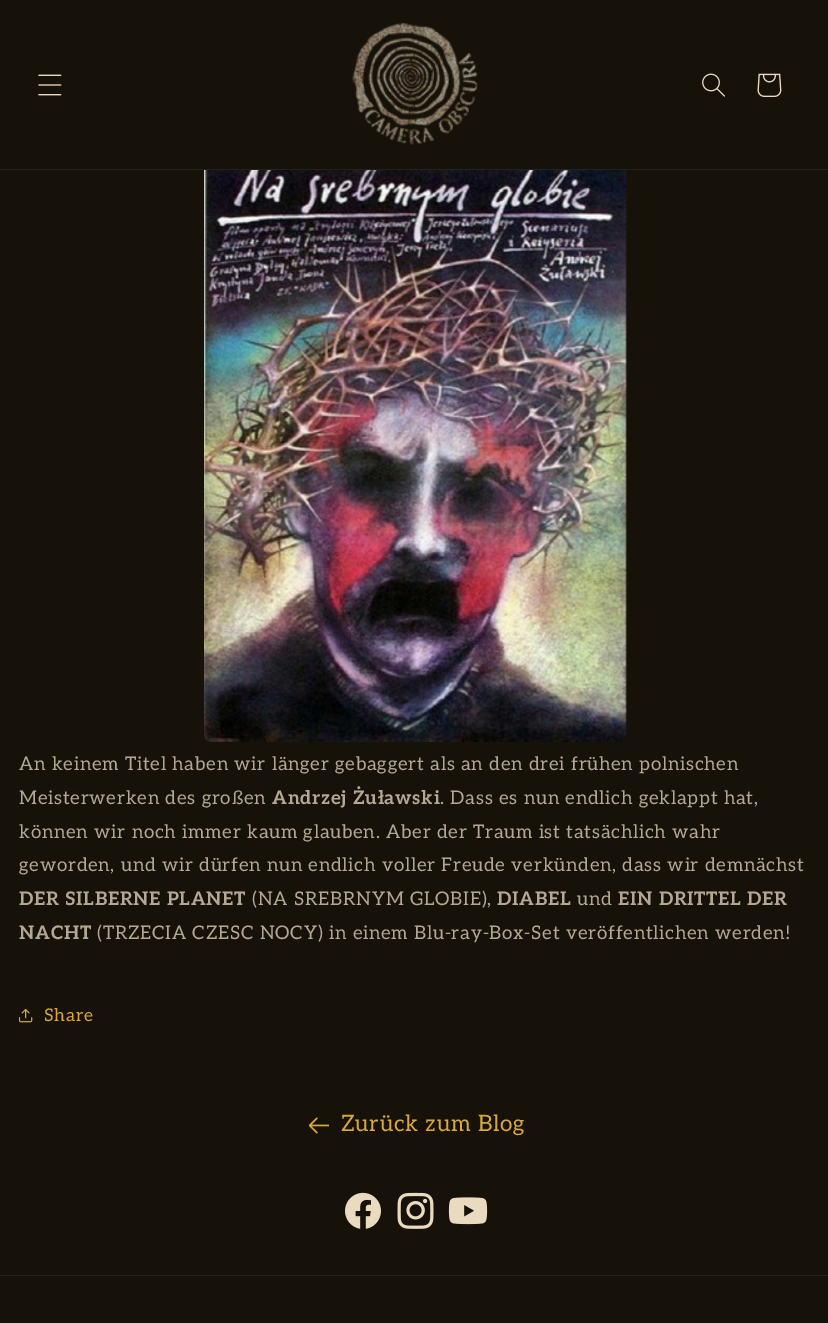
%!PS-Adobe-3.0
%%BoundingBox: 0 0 828 1323
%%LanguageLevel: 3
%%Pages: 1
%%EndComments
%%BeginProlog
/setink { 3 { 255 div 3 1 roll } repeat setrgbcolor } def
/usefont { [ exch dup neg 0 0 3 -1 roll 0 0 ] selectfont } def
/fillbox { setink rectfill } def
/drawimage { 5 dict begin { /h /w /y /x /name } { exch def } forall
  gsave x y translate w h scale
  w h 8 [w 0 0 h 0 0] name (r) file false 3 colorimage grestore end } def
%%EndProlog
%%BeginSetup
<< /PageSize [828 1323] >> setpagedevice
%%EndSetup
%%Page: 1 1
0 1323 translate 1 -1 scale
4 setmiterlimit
0 0 828 1323 22 18 10 fillbox
0 169 828 1 39 34 25 fillbox
(assets/img1.rgb) 38 74 24 22 drawimage
(assets/img2.rgb) 352 22 126 123 drawimage
(assets/img3.rgb) 702 73 23 24 drawimage
(assets/img4.rgb) 757 73 25 24 drawimage
(assets/img5.rgb) 204 170 423 572 drawimage
/Aleo-Regular 18.75 usefont
181 168 147 setink
19 770 moveto 0.75 0 (An keinem Titel haben wir länger gebaggert als an den drei frühen polnischen) ashow
19 804 moveto 0.75 0 (Meisterwerken des großen) ashow
/Aleo-Bold 18.75 usefont
272 804 moveto 0.75 0 (Andrzej Żuławski) ashow
/Aleo-Regular 18.75 usefont
440 804 moveto 0.75 0 (. Dass es nun endlich geklappt hat,) ashow
19 838 moveto 0.75 0 (können wir noch immer kaum glauben. Aber der Traum ist tatsächlich wahr) ashow
19 871 moveto 0.75 0 (geworden, und wir dürfen nun endlich voller Freude verkünden, dass wir demnächst) ashow
/Aleo-Bold 18.75 usefont
19 905 moveto 0.75 0 (DER SILBERNE PLANET) ashow
/Aleo-Regular 18.75 usefont
252 905 moveto 0.75 0 (\(NA SREBRNYM GLOBIE\),) ashow
/Aleo-Bold 18.75 usefont
497 905 moveto 0.75 0 (DIABEL) ashow
/Aleo-Regular 18.75 usefont
577 905 moveto 0.75 0 (und) ashow
/Aleo-Bold 18.75 usefont
618 905 moveto 0.75 0 (EIN DRITTEL DER) ashow
19 939 moveto 0.75 0 (NACHT) ashow
/Aleo-Regular 18.75 usefont
97 939 moveto 0.75 0 (\(TRZECIA CZESC NOCY\) in einem Blu-ray-Box-Set veröffentlichen werden!) ashow
(assets/img6.rgb) 18 1008 15 15 drawimage
/Aleo-Regular 17.5 usefont
218 168 56 setink
44 1021 moveto 0.75 0 (Share) ashow
(assets/img7.rgb) 308 1117 21 17 drawimage
/Aleo-Regular 22.5 usefont
341 1131 moveto 0.75 0 (Zurück zum Blog) ashow
(assets/img8.rgb) 345 1192 36 37 drawimage
(assets/img9.rgb) 397 1192 37 37 drawimage
(assets/img10.rgb) 448 1197 40 28 drawimage
0 1275 828 1 39 34 25 fillbox
showpage
%%EOF
